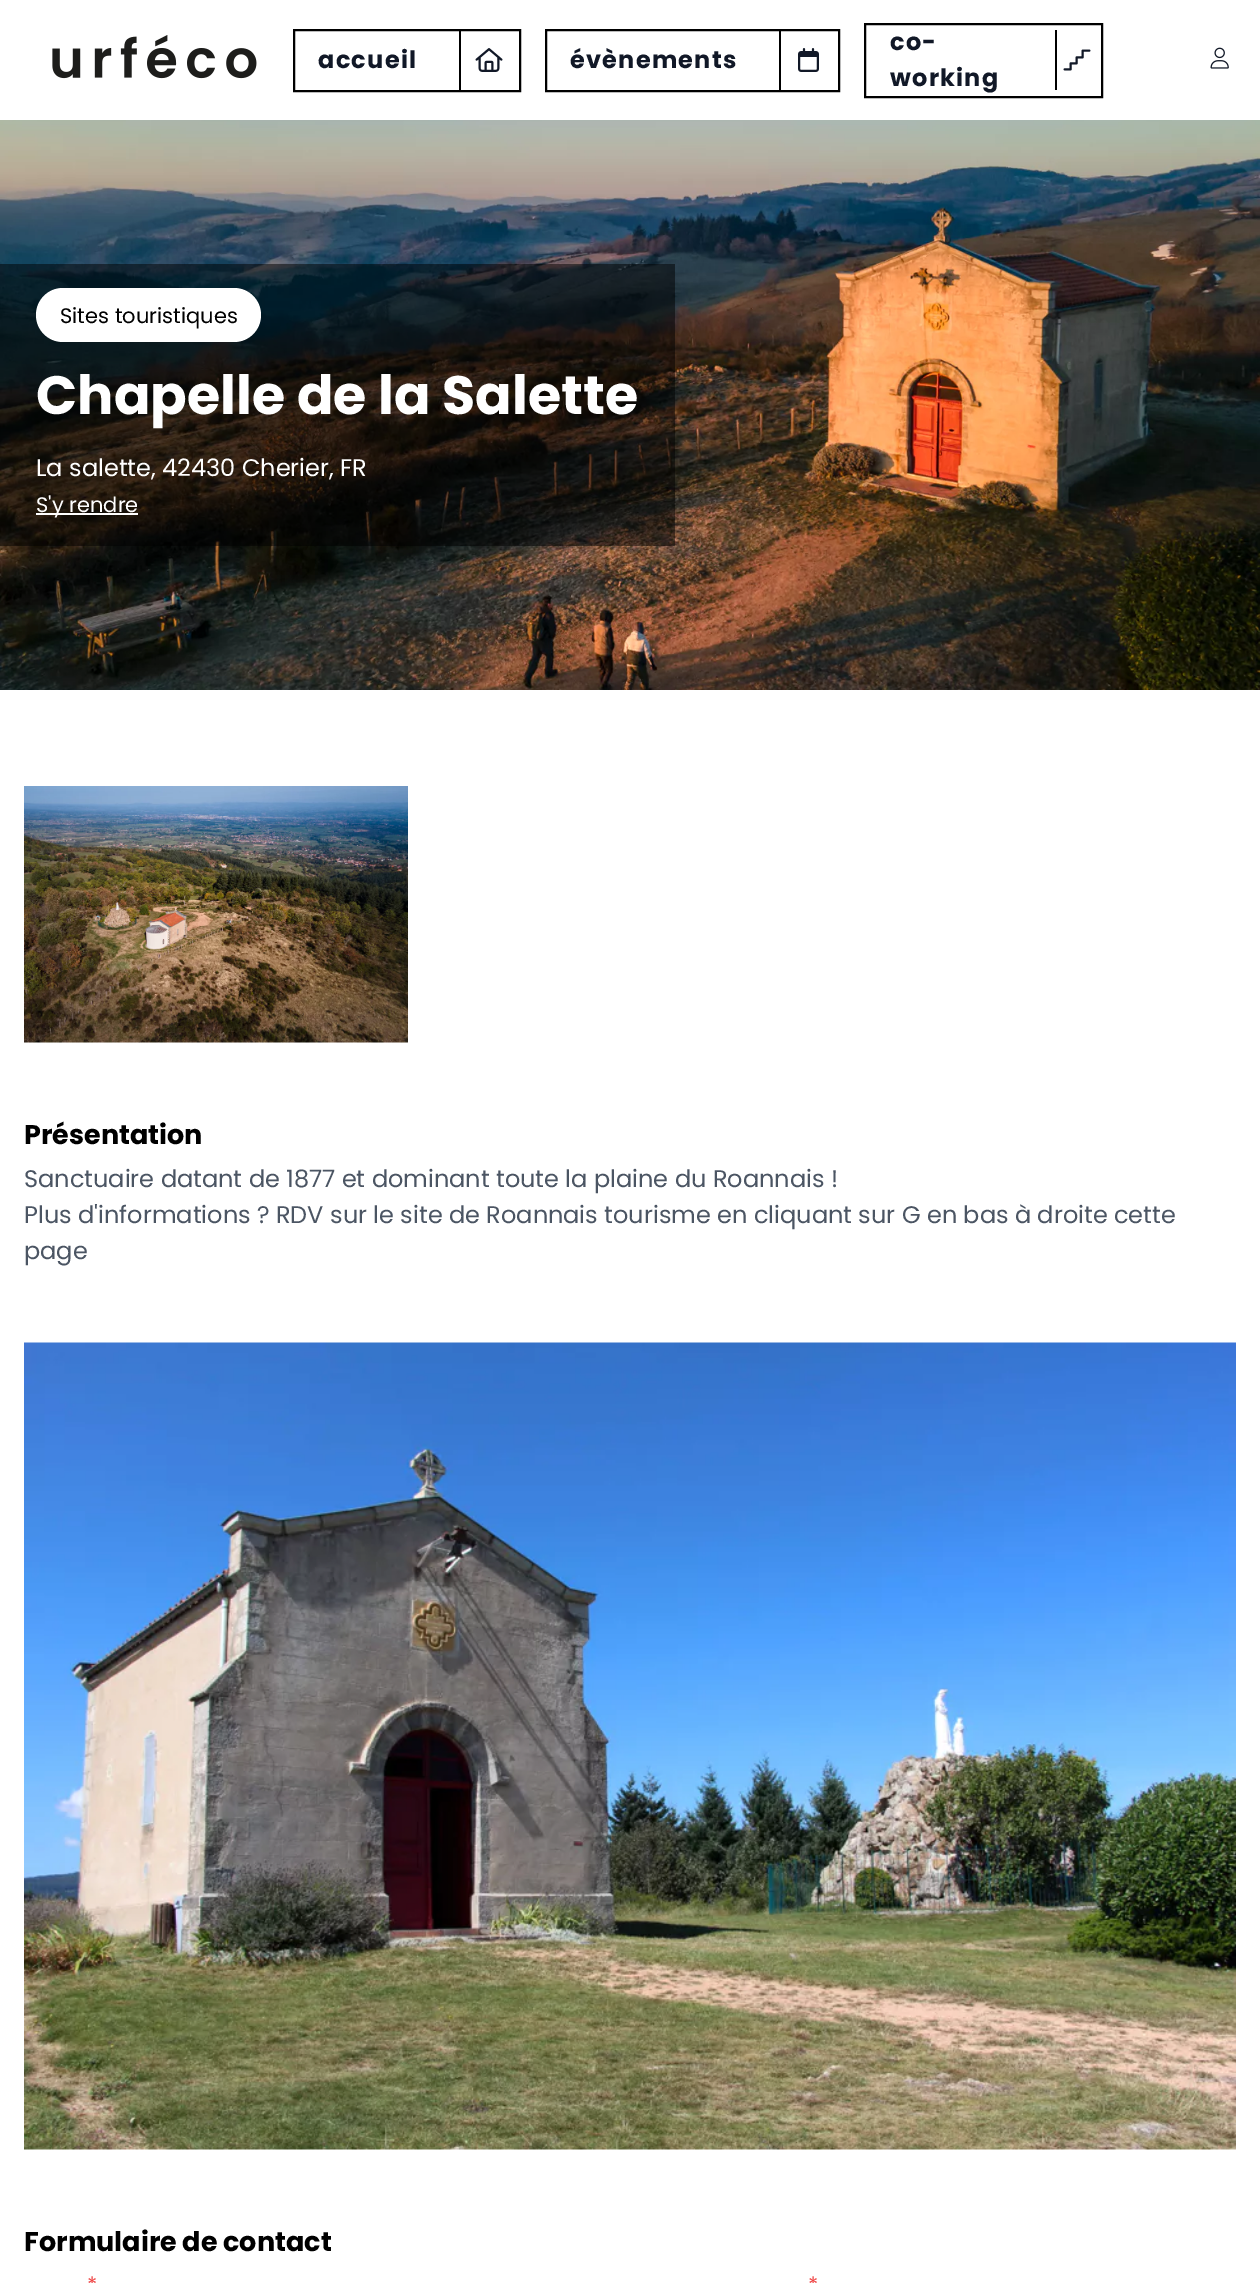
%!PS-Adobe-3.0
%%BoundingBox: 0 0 1260 2283
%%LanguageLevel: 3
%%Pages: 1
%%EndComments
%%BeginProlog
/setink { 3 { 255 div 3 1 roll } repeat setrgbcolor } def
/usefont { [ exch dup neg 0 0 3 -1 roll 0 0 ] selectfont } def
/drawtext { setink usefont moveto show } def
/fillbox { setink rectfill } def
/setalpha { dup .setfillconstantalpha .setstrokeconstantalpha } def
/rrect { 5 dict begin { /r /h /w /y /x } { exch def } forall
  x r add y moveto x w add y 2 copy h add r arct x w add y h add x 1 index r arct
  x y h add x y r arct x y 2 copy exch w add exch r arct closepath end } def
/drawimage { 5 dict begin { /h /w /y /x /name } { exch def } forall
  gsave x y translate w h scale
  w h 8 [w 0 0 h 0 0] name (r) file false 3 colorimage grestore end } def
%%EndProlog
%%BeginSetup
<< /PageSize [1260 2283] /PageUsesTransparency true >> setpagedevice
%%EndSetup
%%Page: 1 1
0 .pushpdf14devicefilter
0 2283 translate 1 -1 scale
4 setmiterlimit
0 0 1260 2283 255 255 255 fillbox
(assets/img1.rgb) 52 35 205 44 drawimage
0 0 0 setink
2 setlinewidth
294 30 226 61 rectstroke
/Poppins-Bold 24 usefont
17 24 39 setink
318 68 moveto 1.25 0 (accueil) ashow
459 30 2 60 0 0 0 fillbox
(assets/img2.rgb) 475 48 28 24 drawimage
546 30 293 61 rectstroke
17 24 39 setink
570 68 moveto 1.25 0 (évènements) ashow
779 30 2 60 0 0 0 fillbox
(assets/img3.rgb) 798 48 21 24 drawimage
865 24 237 73 rectstroke
17 24 39 setink
890 50 moveto 1.25 0 (co-) ashow
890 86 moveto 1.25 0 (working) ashow
1055 30 2 60 0 0 0 fillbox
(assets/img4.rgb) 1063 49 28 22 drawimage
(assets/img5.rgb) 1210 47 19 22 drawimage
(assets/img6.rgb) 0 120 1260 570 drawimage
0.5 setalpha
0 264 675 282 0 0 0 fillbox
1 setalpha
255 255 255 setink
36 288 225 54 27 rrect fill
(Sites touristiques) 60 323 /Poppins-Regular 21 0 0 0 drawtext
(Chapelle de la Salette) 36 414 /Poppins-Bold 54 255 255 255 drawtext
(La salette, 42430 Cherier, FR) 36 476 /Poppins-Regular 24 255 255 255 drawtext
36 513 102 2 255 255 255 fillbox
(S'y rendre) 36 512 /Poppins-Regular 21 255 255 255 drawtext
(assets/img7.rgb) 24 786 384 257 drawimage
(Présentation) 24 1144 /Poppins-Bold 27 0 0 0 drawtext
(Sanctuaire datant de 1877 et dominant toute la plaine du Roannais !) 24 1187 /Poppins-Regular 24 75 85 99 drawtext
(Plus d'informations ? RDV sur le site de Roannais tourisme en cliquant sur G en bas à droite cette) 24 1223 /Poppins-Regular 24 75 85 99 drawtext
(page) 24 1259 /Poppins-Regular 24 75 85 99 drawtext
(assets/img8.rgb) 24 1342 1212 808 drawimage
(Formulaire de contact) 24 2251 /Poppins-Bold 27 0 0 0 drawtext
(*) 87 2292 /Poppins-Regular 21 239 68 68 drawtext
(*) 808 2292 /Poppins-Regular 21 239 68 68 drawtext
.poppdf14devicefilter showpage
%%EOF
